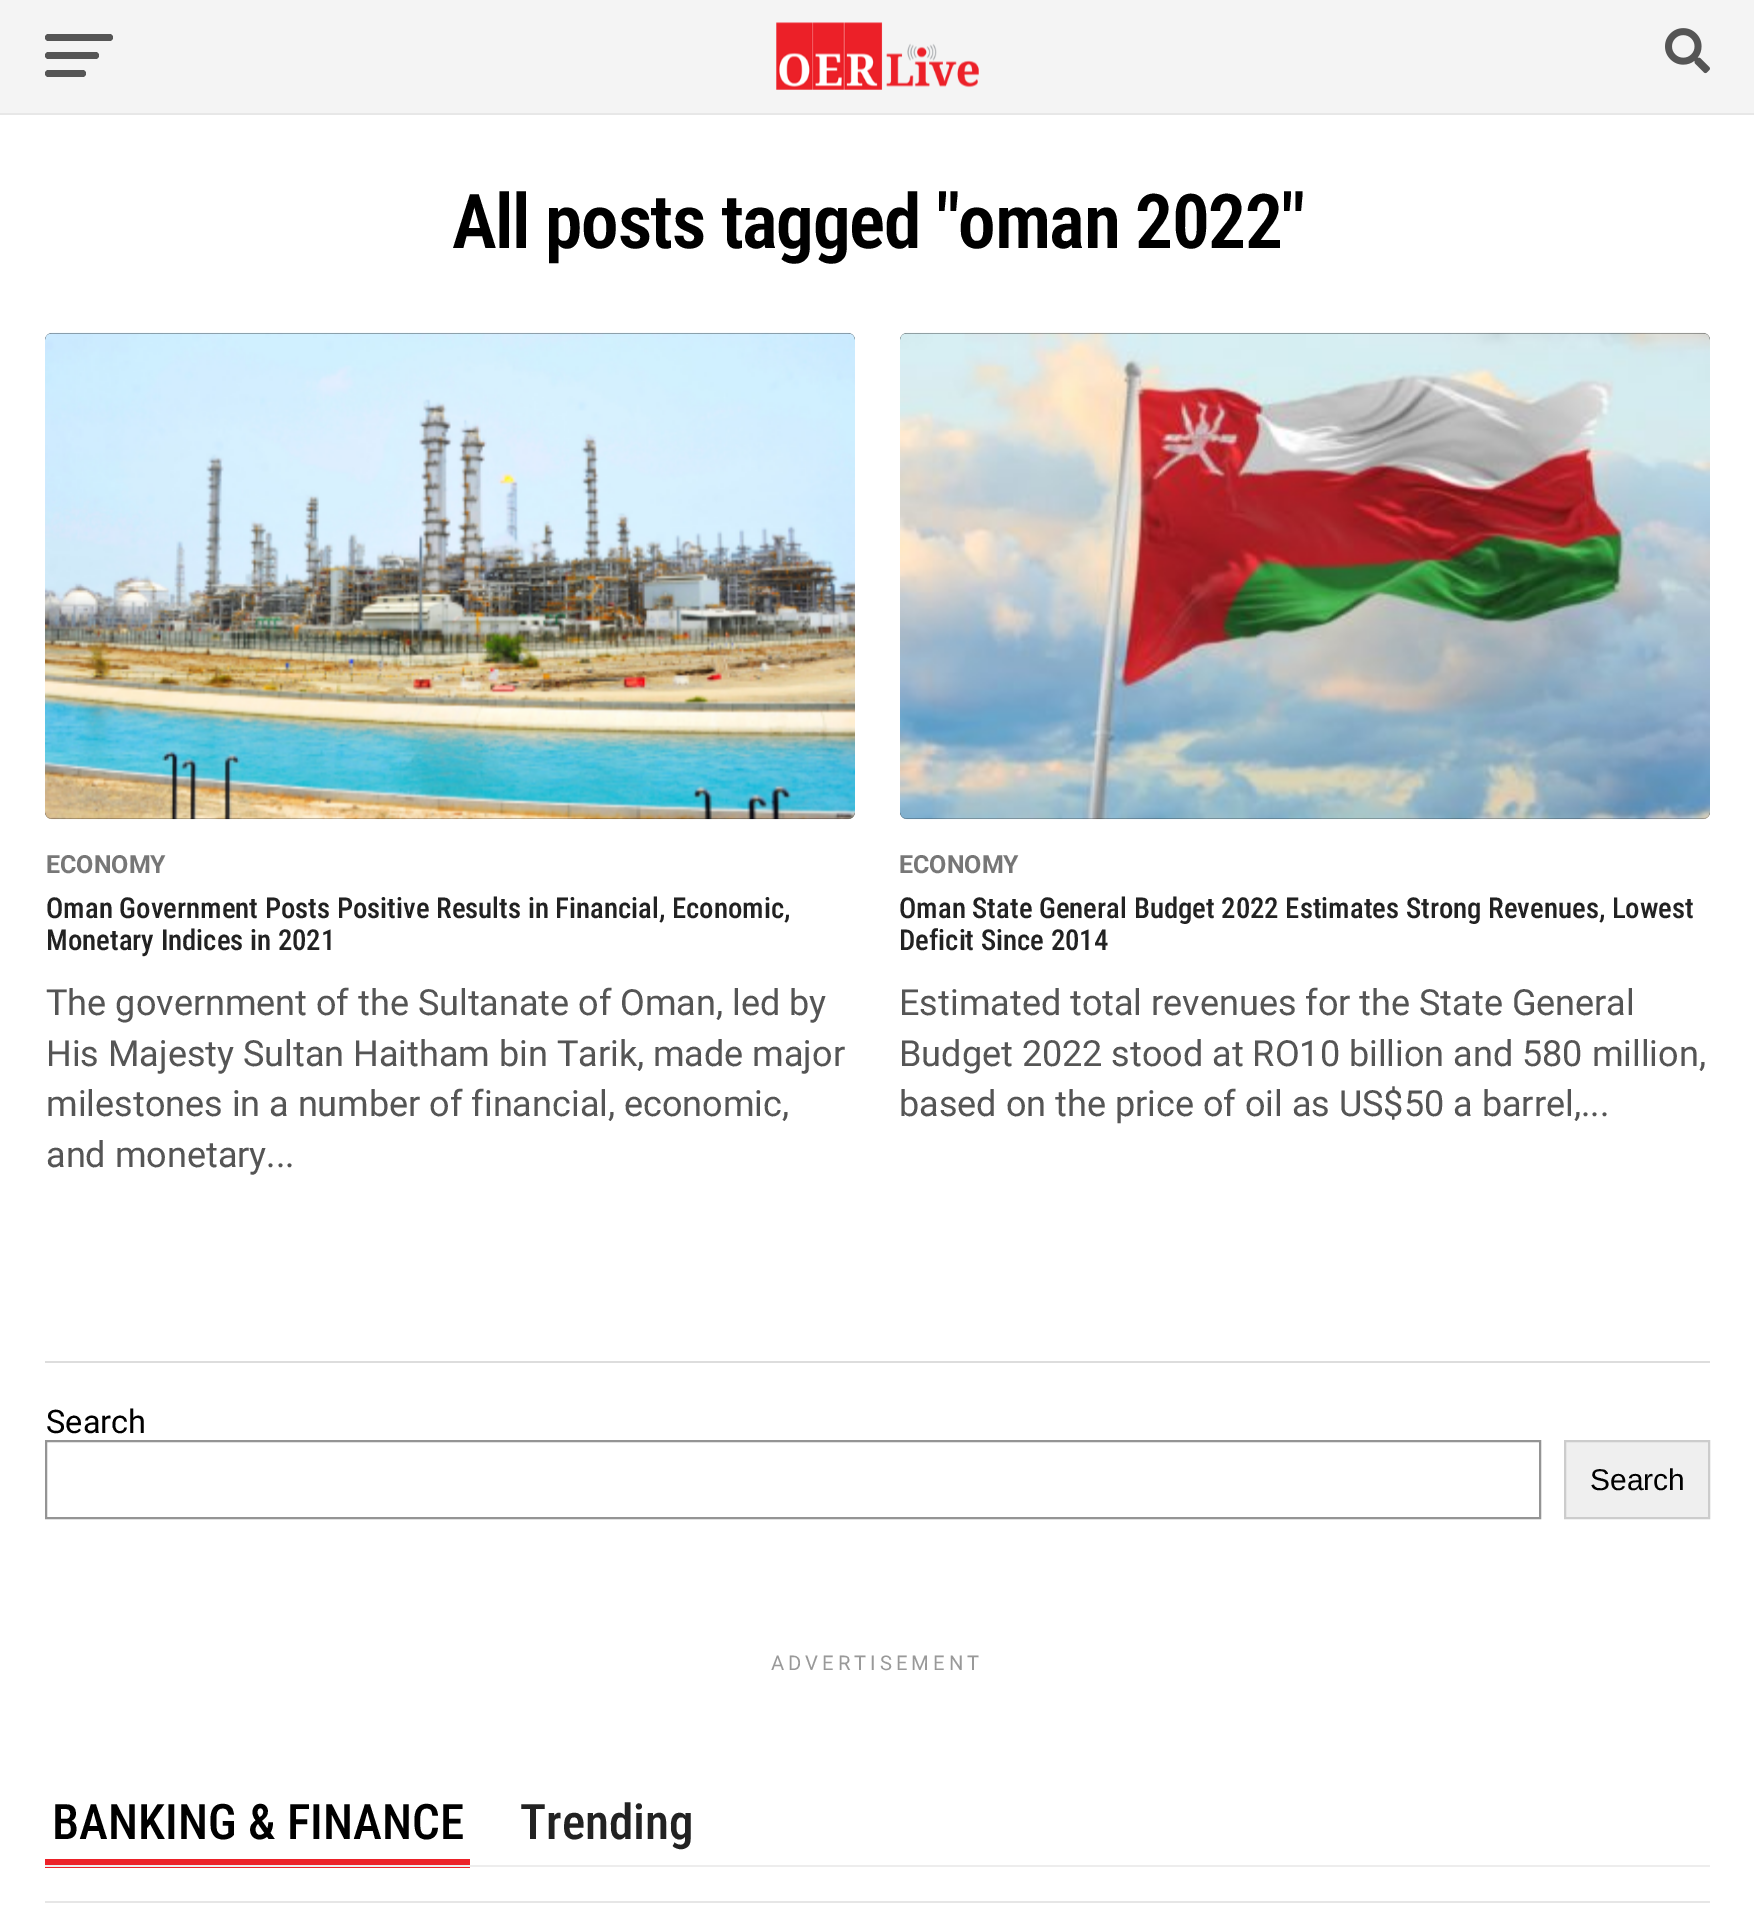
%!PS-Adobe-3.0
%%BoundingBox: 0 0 1754 1905
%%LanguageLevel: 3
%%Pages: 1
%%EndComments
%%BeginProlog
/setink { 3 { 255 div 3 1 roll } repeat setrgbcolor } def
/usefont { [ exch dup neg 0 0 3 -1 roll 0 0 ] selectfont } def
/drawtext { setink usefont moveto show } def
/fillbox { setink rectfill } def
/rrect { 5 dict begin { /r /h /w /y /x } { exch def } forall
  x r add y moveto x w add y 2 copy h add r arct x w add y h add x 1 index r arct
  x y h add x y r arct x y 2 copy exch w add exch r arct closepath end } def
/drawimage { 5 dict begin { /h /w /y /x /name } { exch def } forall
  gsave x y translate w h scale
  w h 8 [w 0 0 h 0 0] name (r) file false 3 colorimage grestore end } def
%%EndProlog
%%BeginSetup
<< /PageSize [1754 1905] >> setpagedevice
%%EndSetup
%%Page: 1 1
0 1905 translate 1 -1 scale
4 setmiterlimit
0 0 1754 1905 255 255 255 fillbox
0 0 1754 113 244 244 244 fillbox
0 113 1754 2 231 231 231 fillbox
85 85 85 setink
45 34 68 7 3.5 rrect fill
45 52 54 7 3.5 rrect fill
45 70 41 7 3.5 rrect fill
(assets/img1.rgb) 776 22 203 68 drawimage
(assets/img2.rgb) 1665 28 45 46 drawimage
/RobotoCondensed-SemiBold 75.6 usefont
0 0 0 setink
452 248 moveto -1.5 0 (All posts tagged "oman 2022") ashow
45 333 810 486 7 rrect fill
(assets/img3.rgb) 45 332 810 488 drawimage
(ECONOMY) 46 873 /Roboto-Bold 25 119 119 119 drawtext
(Oman Government Posts Positive Results in Financial, Economic,) 46 918 /RobotoCondensed-Medium 28.8 34 34 34 drawtext
(Monetary Indices in 2021) 46 950 /RobotoCondensed-Medium 28.8 34 34 34 drawtext
(The government of the Sultanate of Oman, led by) 46 1015 /Roboto-Regular 36 85 85 85 drawtext
(His Majesty Sultan Haitham bin Tarik, made major) 46 1066 /Roboto-Regular 36 85 85 85 drawtext
(milestones in a number of financial, economic,) 46 1116 /Roboto-Regular 36 85 85 85 drawtext
(and monetary...) 46 1167 /Roboto-Regular 36 85 85 85 drawtext
0 0 0 setink
900 333 810 486 7 rrect fill
(assets/img4.rgb) 900 332 810 488 drawimage
(ECONOMY) 899 873 /Roboto-Bold 25 119 119 119 drawtext
(Oman State General Budget 2022 Estimates Strong Revenues, Lowest) 899 918 /RobotoCondensed-Medium 28.8 34 34 34 drawtext
(Deficit Since 2014) 899 950 /RobotoCondensed-Medium 28.8 34 34 34 drawtext
(Estimated total revenues for the State General) 899 1015 /Roboto-Regular 36 85 85 85 drawtext
(Budget 2022 stood at RO10 billion and 580 million,) 899 1066 /Roboto-Regular 36 85 85 85 drawtext
(based on the price of oil as US$50 a barrel,...) 899 1116 /Roboto-Regular 36 85 85 85 drawtext
45 1361 1665 2 221 221 221 fillbox
(Search) 46 1433 /Roboto-Regular 32.5 0 0 0 drawtext
148 148 148 setink
2 setlinewidth
46 1441 1494 77 rectstroke
239 239 239 setink
1565 1441 moveto 1709 1441 lineto 1709 1518 lineto 1565 1518 lineto closepath gsave fill grestore
204 204 204 setink
stroke
(Search) 1590 1490 /LiberationSans-Regular 30 0 0 0 drawtext
/Roboto-Regular 20.25 usefont
153 153 153 setink
771 1670 moveto 4 0 (ADVERTISEMENT) ashow
45 1859 425 9 236 33 40 fillbox
(BANKING & FINANCE) 52 1839 /RobotoCondensed-Medium 49 0 0 0 drawtext
(Trending) 520 1839 /RobotoCondensed-Medium 49 34 34 34 drawtext
45 1865 1665 2 237 237 237 fillbox
45 1901 1665 2 230 230 230 fillbox
showpage
%%EOF
